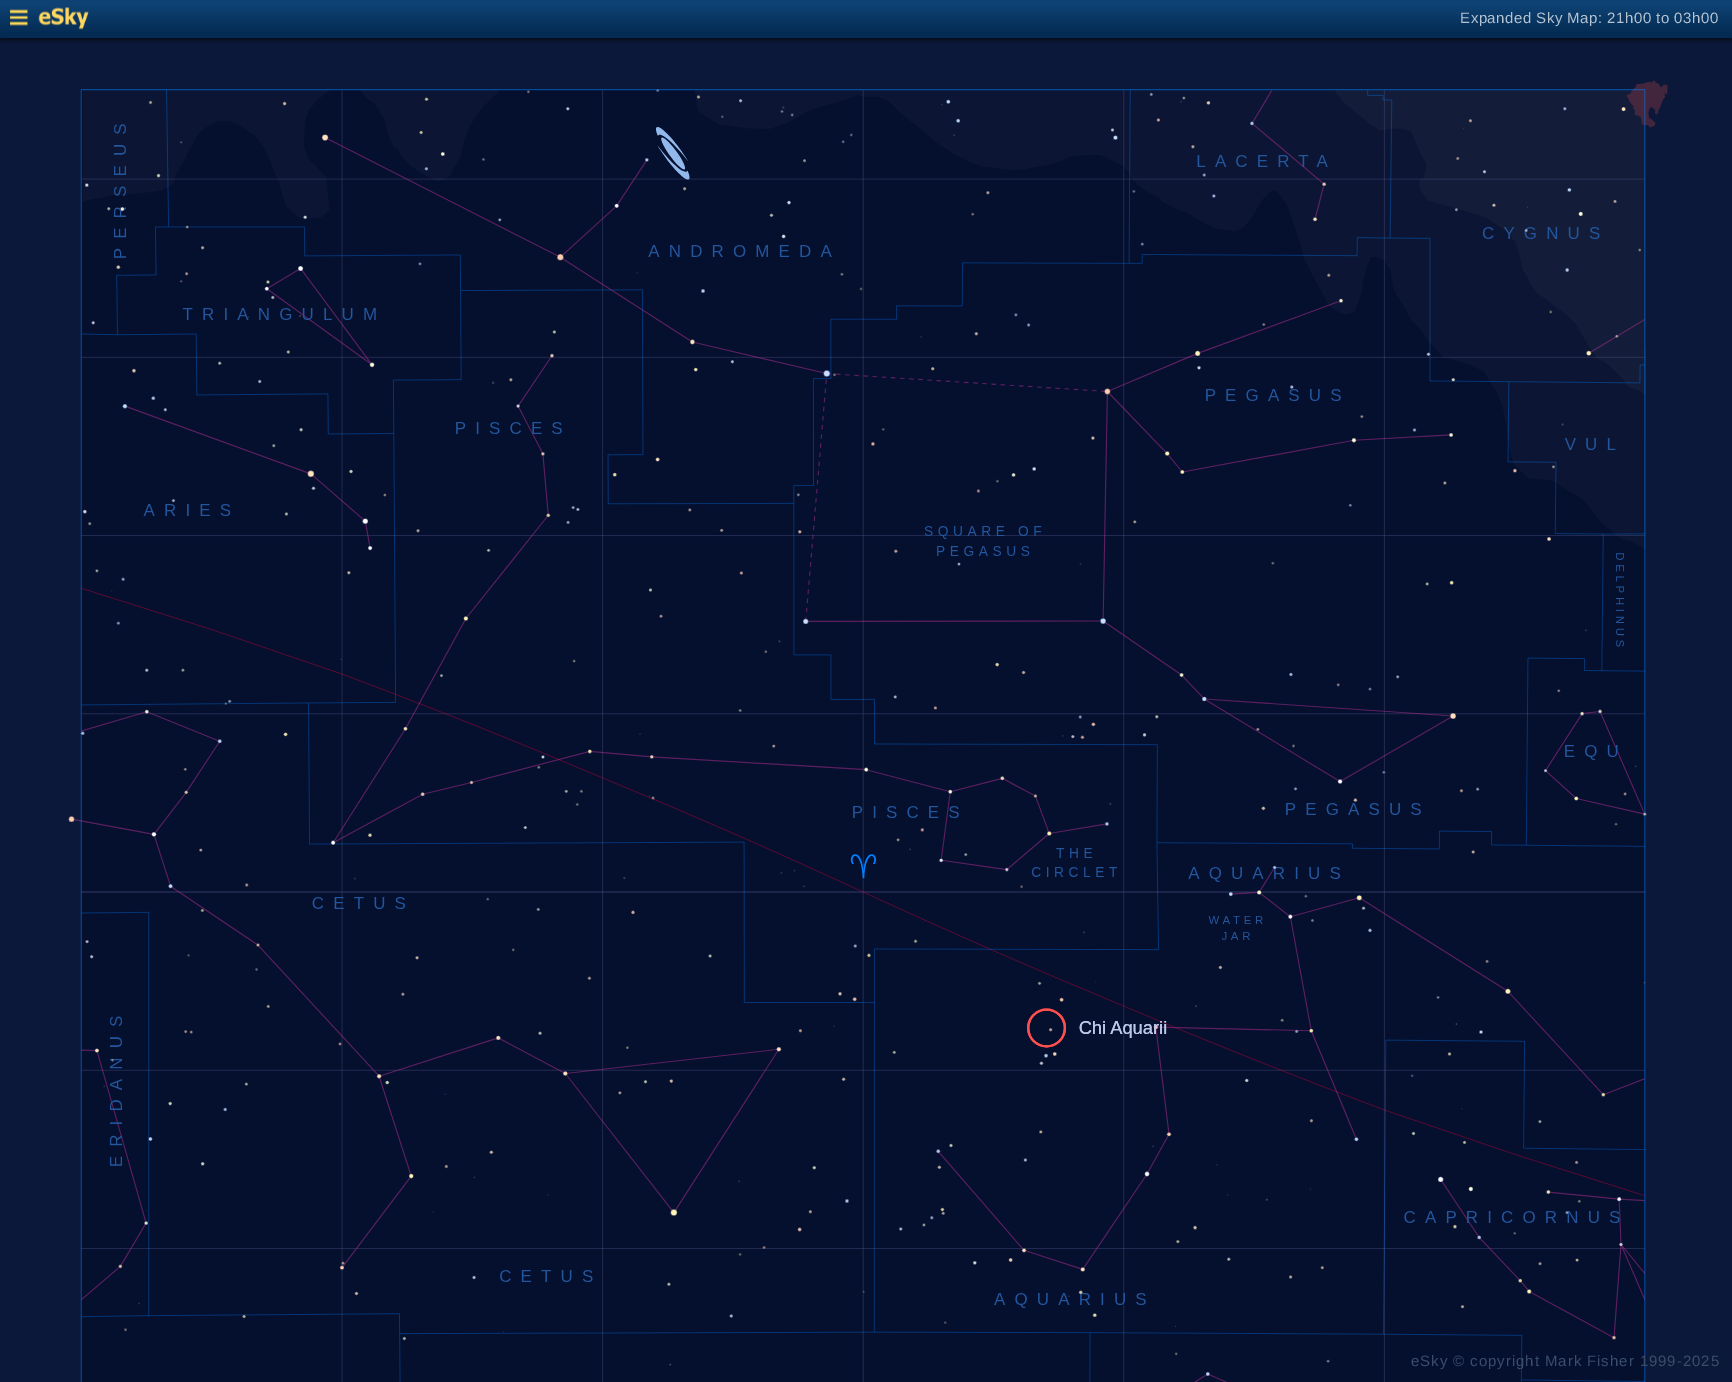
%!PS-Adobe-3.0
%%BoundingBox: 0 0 1732 1382
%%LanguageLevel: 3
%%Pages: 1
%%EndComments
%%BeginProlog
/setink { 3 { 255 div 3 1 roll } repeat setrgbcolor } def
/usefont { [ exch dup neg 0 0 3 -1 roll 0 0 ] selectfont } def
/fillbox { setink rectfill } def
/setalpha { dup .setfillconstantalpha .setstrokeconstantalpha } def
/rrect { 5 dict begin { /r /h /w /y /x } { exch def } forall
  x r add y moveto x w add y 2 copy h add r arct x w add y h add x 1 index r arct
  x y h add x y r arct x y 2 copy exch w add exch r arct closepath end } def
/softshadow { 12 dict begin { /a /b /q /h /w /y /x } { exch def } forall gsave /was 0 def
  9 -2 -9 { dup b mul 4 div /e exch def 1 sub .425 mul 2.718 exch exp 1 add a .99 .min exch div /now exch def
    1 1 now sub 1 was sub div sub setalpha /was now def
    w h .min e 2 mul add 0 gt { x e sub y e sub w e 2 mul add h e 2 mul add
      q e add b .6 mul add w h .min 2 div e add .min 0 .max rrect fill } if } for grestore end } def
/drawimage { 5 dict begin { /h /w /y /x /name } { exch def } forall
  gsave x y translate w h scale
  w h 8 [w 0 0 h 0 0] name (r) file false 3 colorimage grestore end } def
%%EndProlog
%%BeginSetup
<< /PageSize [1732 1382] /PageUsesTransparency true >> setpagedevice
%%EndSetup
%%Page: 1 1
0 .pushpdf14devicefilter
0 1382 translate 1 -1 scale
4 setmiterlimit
0 0 1732 1382 11 24 57 fillbox
0 0 0 setink
0 4 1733 37 0 2 0.5 softshadow
gsave 0 0 moveto 1732 0 lineto 1732 38 lineto 0 38 lineto closepath clip newpath
<< /ShadingType 2 /ColorSpace /DeviceRGB /Coords [0 0 0 38] /Extend [true true] /Function << /FunctionType 3 /Domain [0 1] /Functions [<< /FunctionType 2 /Domain [0 1] /C0 [0.055 0.259 0.459] /C1 [0.055 0.259 0.459] /N 1 >> << /FunctionType 2 /Domain [0 1] /C0 [0.055 0.259 0.459] /C1 [0.016 0.169 0.322] /N 1 >> << /FunctionType 2 /Domain [0 1] /C0 [0.016 0.169 0.322] /C1 [0.016 0.169 0.322] /N 1 >>] /Bounds [0.1 0.9] /Encode [0 1 0 1 0 1] >> >> shfill grestore
(assets/img1.rgb) 10 9 18 17 drawimage
(assets/img2.rgb) 38 7 51 23 drawimage
/LiberationSans-Regular 15 usefont
181 195 209 setink
1460 23 moveto 0.5 0 (Expanded Sky Map: 21h00 to 03h00) ashow
(assets/img3.rgb) 68 80 1600 1302 drawimage
58 77 106 setink
1411 1366 moveto 0.95 0 (eSky © copyright Mark Fisher 1999-2025) ashow
.poppdf14devicefilter showpage
%%EOF
